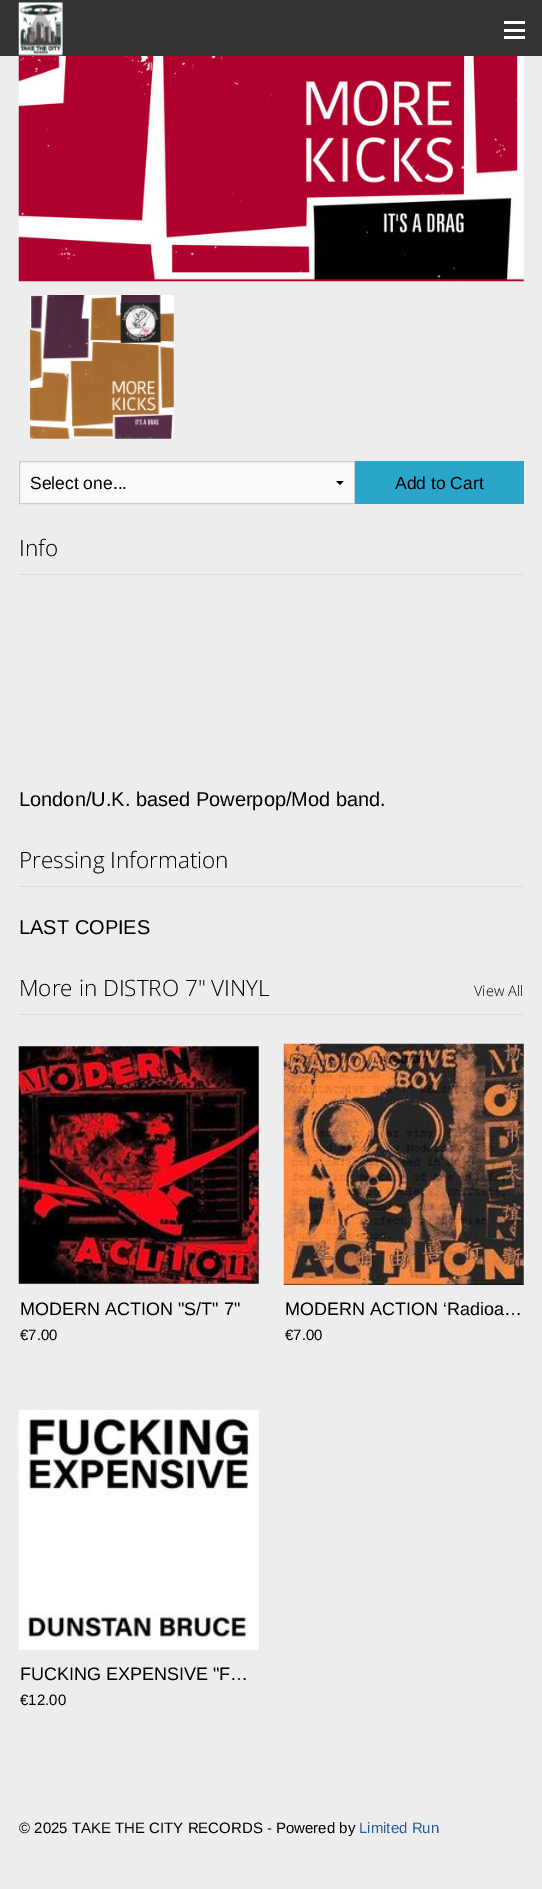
%!PS-Adobe-3.0
%%BoundingBox: 0 0 542 1889
%%LanguageLevel: 3
%%Pages: 1
%%EndComments
%%BeginProlog
/setink { 3 { 255 div 3 1 roll } repeat setrgbcolor } def
/usefont { [ exch dup neg 0 0 3 -1 roll 0 0 ] selectfont } def
/drawtext { setink usefont moveto show } def
/fillbox { setink rectfill } def
/drawimage { 5 dict begin { /h /w /y /x /name } { exch def } forall
  gsave x y translate w h scale
  w h 8 [w 0 0 h 0 0] name (r) file false 3 colorimage grestore end } def
%%EndProlog
%%BeginSetup
<< /PageSize [542 1889] >> setpagedevice
%%EndSetup
%%Page: 1 1
0 1889 translate 1 -1 scale
4 setmiterlimit
0 0 542 1889 237 237 237 fillbox
0 0 542 56 51 51 51 fillbox
(assets/img1.rgb) 18 2 45 54 drawimage
504 36 21 3 255 255 255 fillbox
504 29 21 3 255 255 255 fillbox
504 21 21 3 255 255 255 fillbox
(assets/img2.rgb) 18 56 506 226 drawimage
(assets/img3.rgb) 30 295 144 144 drawimage
20 462 334 41 250 250 250 fillbox
0 0 0 setink
343.5 481 moveto 340 485 lineto 336 481 lineto closepath fill
204 204 204 setink
19.5 461.5 335 42 rectstroke
(Select one...) 30 489 /LiberationSans-Regular 17.5 0 0 0 drawtext
355 461 169 43 43 166 203 fillbox
(Add to Cart) 395 489 /LiberationSans-Regular 17.5 0 0 0 drawtext
(Info) 19 556 /OpenSans-Light 22.5 0 0 0 drawtext
19 574 505 1 221 221 221 fillbox
(London/U.K. based Powerpop/Mod band.) 19 806 /LiberationSans-Regular 20 0 0 0 drawtext
(Pressing Information) 19 868 /OpenSans-Light 22.5 0 0 0 drawtext
19 886 505 1 221 221 221 fillbox
(LAST COPIES) 19 934 /LiberationSans-Regular 20 0 0 0 drawtext
(More in DISTRO 7" VINYL) 19 996 /OpenSans-Light 22.5 0 0 0 drawtext
(View All) 474 996 /OpenSans-Light 14.5 0 0 0 drawtext
19 1014 505 1 221 221 221 fillbox
(assets/img4.rgb) 18 1046 241 238 drawimage
(MODERN ACTION "S/T" 7") 20 1315 /LiberationSans-Regular 18 0 0 0 drawtext
(€7.00) 20 1340 /LiberationSans-Regular 15 0 0 0 drawtext
(assets/img5.rgb) 283 1043 241 242 drawimage
(MODERN ACTION ‘Radioa…) 285 1315 /LiberationSans-Regular 18 0 0 0 drawtext
(€7.00) 285 1340 /LiberationSans-Regular 15 0 0 0 drawtext
(assets/img6.rgb) 18 1410 241 240 drawimage
(FUCKING EXPENSIVE "F…) 20 1680 /LiberationSans-Regular 18 0 0 0 drawtext
(€12.00) 20 1705 /LiberationSans-Regular 15 0 0 0 drawtext
(© 2025 TAKE THE CITY RECORDS - Powered by) 19 1833 /LiberationSans-Regular 15 0 0 0 drawtext
(Limited Run) 359 1833 /LiberationSans-Regular 15 44 91 153 drawtext
showpage
%%EOF
